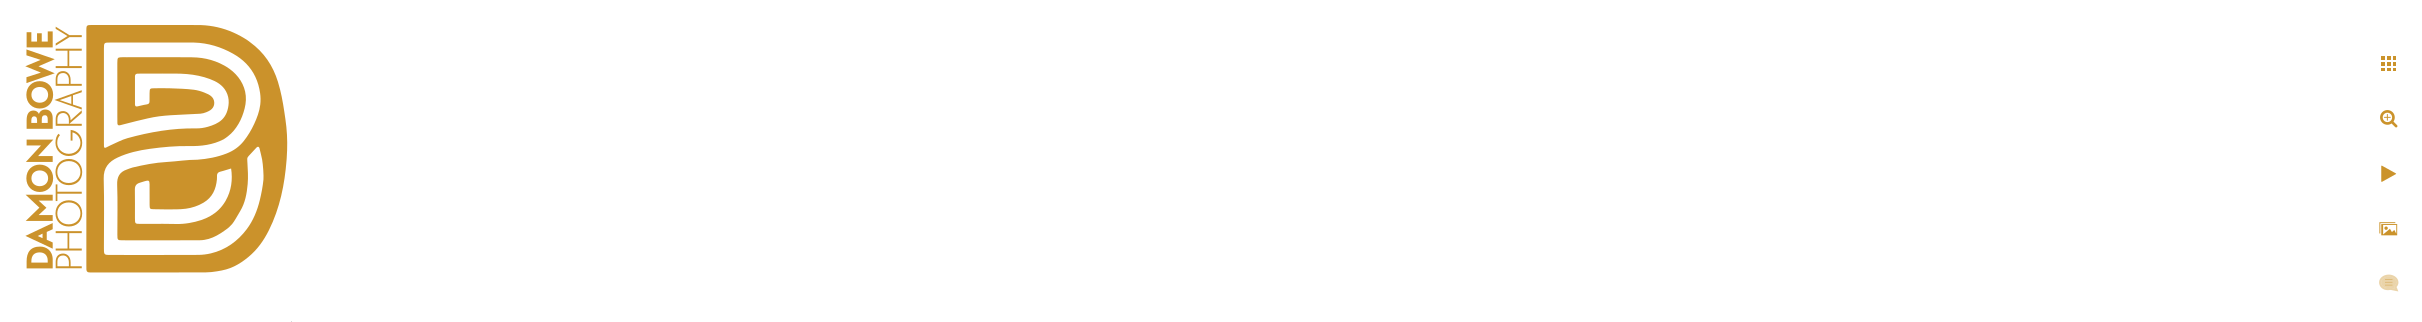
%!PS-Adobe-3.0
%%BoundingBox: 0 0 2422 322
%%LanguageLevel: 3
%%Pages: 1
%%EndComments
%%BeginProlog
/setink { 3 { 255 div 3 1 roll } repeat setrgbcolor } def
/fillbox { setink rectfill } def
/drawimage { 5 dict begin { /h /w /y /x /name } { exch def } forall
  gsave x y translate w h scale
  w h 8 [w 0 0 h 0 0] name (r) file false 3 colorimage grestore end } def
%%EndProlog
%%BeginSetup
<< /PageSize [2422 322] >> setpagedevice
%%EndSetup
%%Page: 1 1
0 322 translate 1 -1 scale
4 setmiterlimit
0 0 2422 322 255 255 255 fillbox
(assets/img1.rgb) 25 25 263 248 drawimage
291 321 1 1 217 217 217 fillbox
(assets/img2.rgb) 2381 56 15 15 drawimage
(assets/img3.rgb) 2380 110 18 18 drawimage
(assets/img4.rgb) 2381 165 16 17 drawimage
(assets/img5.rgb) 2379 222 19 14 drawimage
(assets/img6.rgb) 2379 274 20 18 drawimage
showpage
%%EOF
